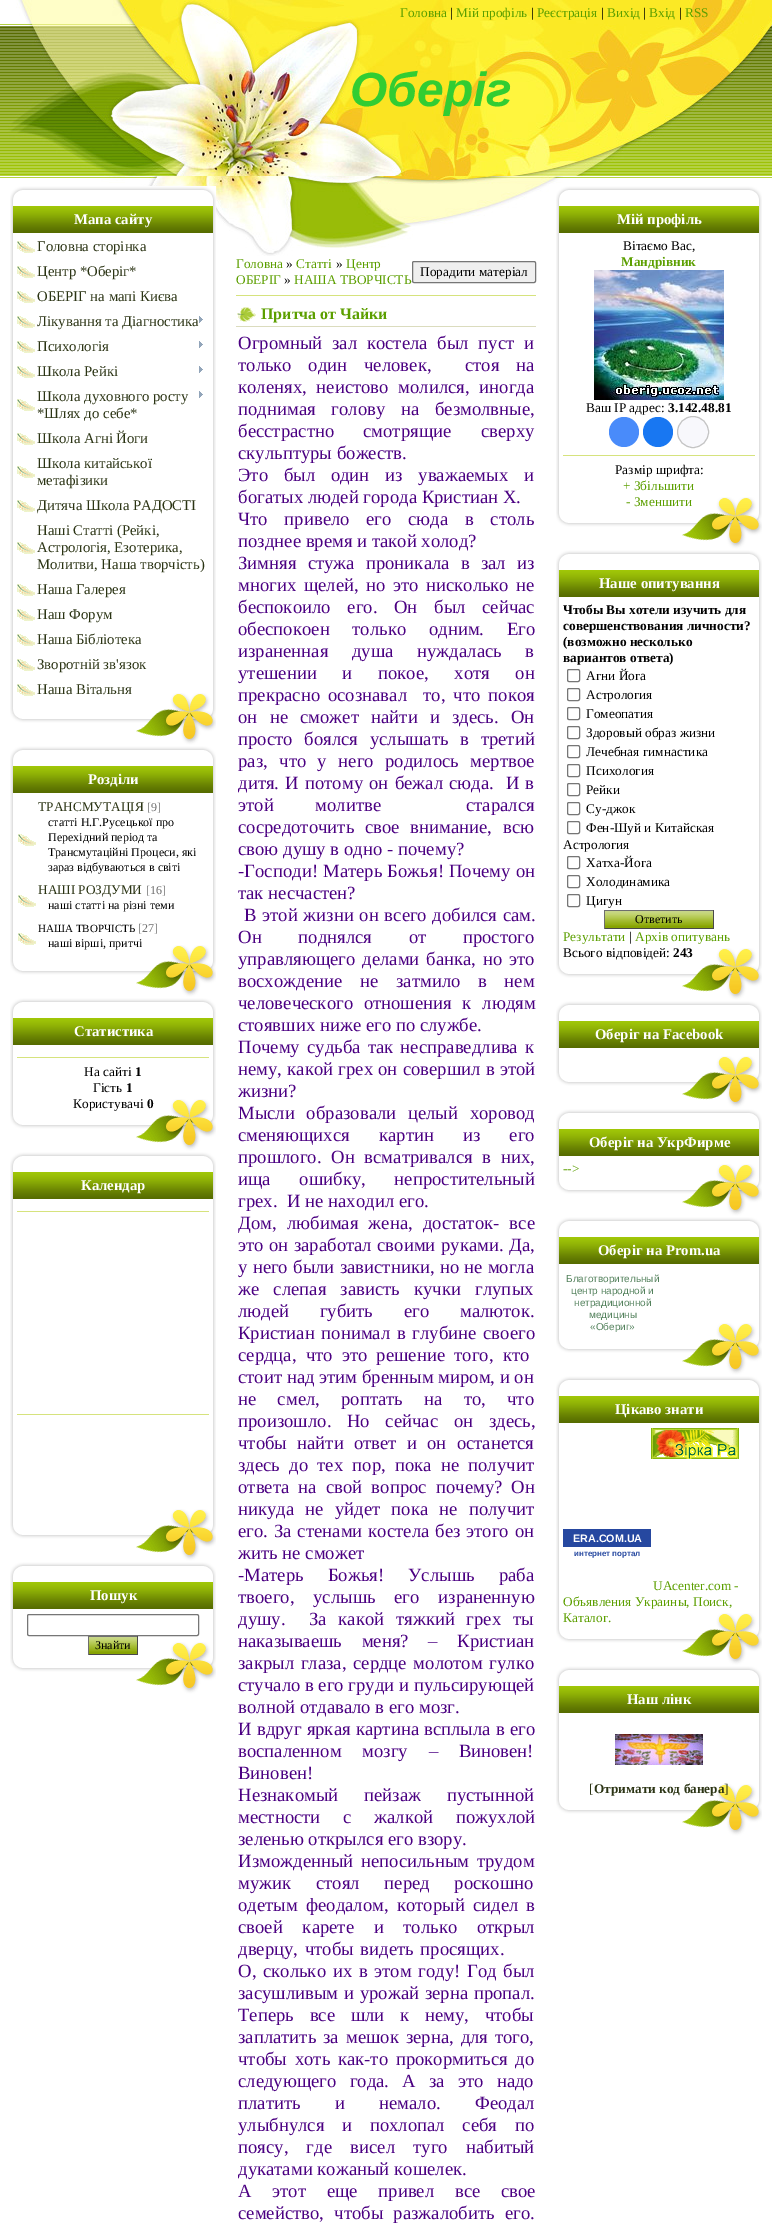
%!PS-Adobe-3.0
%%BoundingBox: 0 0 772 2234
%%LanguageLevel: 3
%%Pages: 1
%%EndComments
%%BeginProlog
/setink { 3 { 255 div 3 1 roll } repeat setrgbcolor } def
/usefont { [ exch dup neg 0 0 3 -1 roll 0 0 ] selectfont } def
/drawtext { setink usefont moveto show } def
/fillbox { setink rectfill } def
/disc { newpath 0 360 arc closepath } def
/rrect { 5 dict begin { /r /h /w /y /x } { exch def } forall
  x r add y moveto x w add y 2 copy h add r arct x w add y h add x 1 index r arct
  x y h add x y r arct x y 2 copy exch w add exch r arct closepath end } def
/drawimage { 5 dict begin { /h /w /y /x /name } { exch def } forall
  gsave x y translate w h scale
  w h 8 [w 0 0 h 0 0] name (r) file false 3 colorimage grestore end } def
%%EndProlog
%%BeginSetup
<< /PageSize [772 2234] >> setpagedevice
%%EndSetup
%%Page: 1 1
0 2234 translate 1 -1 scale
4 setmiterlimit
0 0 772 2234 255 255 255 fillbox
(assets/img1.rgb) 0 24 772 154 drawimage
(assets/img2.rgb) 16 0 756 26 drawimage
(Головна) 400 17 /LiberationSerif-Regular 13.3 92 159 0 drawtext
(|) 450 17 /LiberationSerif-Regular 13.3 0 0 0 drawtext
(Мій профіль) 456 17 /LiberationSerif-Regular 13.3 92 159 0 drawtext
(|) 531 17 /LiberationSerif-Regular 13.3 0 0 0 drawtext
(Реєстрація) 537 17 /LiberationSerif-Regular 13.3 92 159 0 drawtext
(|) 601 17 /LiberationSerif-Regular 13.3 0 0 0 drawtext
(Вихід) 607 17 /LiberationSerif-Regular 13.3 92 159 0 drawtext
(|) 643 17 /LiberationSerif-Regular 13.3 0 0 0 drawtext
(Вхід) 649 17 /LiberationSerif-Regular 13.3 92 159 0 drawtext
(|) 679 17 /LiberationSerif-Regular 13.3 0 0 0 drawtext
(RSS) 685 17 /LiberationSerif-Regular 13.3 92 159 0 drawtext
(assets/img3.rgb) 0 26 772 150 drawimage
(Оберіг) 350 106 /LiberationSans-BoldItalic 48 50 205 50 drawtext
(assets/img4.rgb) 101 176 462 80 drawimage
(assets/img5.rgb) 10 233 206 460 drawimage
(assets/img6.rgb) 10 186 206 47 drawimage
(Мапа сайту) 74 224 /LiberationSerif-Bold 14.75 255 255 255 drawtext
(assets/img7.rgb) 10 693 206 53 drawimage
(assets/img8.rgb) 17 241 18 12 drawimage
(Головна сторінка) 37 251 /LiberationSerif-Regular 14.75 43 52 20 drawtext
(assets/img8.rgb) 17 266 18 12 drawimage
(Центр *Оберіг*) 37 276 /LiberationSerif-Regular 14.75 43 52 20 drawtext
(assets/img8.rgb) 17 291 18 12 drawimage
(ОБЕРІГ на мапі Києва) 37 301 /LiberationSerif-Regular 14.75 43 52 20 drawtext
(assets/img8.rgb) 17 316 18 12 drawimage
(Лікування та Діагностика) 37 326 /LiberationSerif-Regular 14.75 43 52 20 drawtext
(assets/img9.rgb) 199 316 4 7 drawimage
(assets/img8.rgb) 17 341 18 12 drawimage
(Психологія) 37 351 /LiberationSerif-Regular 14.75 43 52 20 drawtext
(assets/img9.rgb) 199 341 4 7 drawimage
(assets/img8.rgb) 17 366 18 12 drawimage
(Школа Рейкі) 37 376 /LiberationSerif-Regular 14.75 43 52 20 drawtext
(assets/img9.rgb) 199 366 4 7 drawimage
(assets/img8.rgb) 17 399 18 12 drawimage
(Школа духовного росту) 37 401 /LiberationSerif-Regular 14.75 43 52 20 drawtext
(assets/img9.rgb) 199 391 4 7 drawimage
(*Шлях до себе*) 37 418 /LiberationSerif-Regular 14.75 43 52 20 drawtext
(assets/img8.rgb) 17 433 18 12 drawimage
(Школа Агні Йоги) 37 443 /LiberationSerif-Regular 14.75 43 52 20 drawtext
(assets/img8.rgb) 17 466 18 12 drawimage
(Школа китайської) 37 468 /LiberationSerif-Regular 14.75 43 52 20 drawtext
(метафізики) 37 485 /LiberationSerif-Regular 14.75 43 52 20 drawtext
(assets/img8.rgb) 17 500 18 12 drawimage
(Дитяча Школа РАДОСТІ) 37 510 /LiberationSerif-Regular 14.75 43 52 20 drawtext
(assets/img8.rgb) 17 542 18 12 drawimage
(Наші Статті \(Рейкі,) 37 535 /LiberationSerif-Regular 14.75 43 52 20 drawtext
(Астрологія, Езотерика,) 37 552 /LiberationSerif-Regular 14.75 43 52 20 drawtext
(Молитви, Наша творчість\)) 37 569 /LiberationSerif-Regular 14.75 43 52 20 drawtext
(assets/img8.rgb) 17 584 18 12 drawimage
(Наша Галерея) 37 594 /LiberationSerif-Regular 14.75 43 52 20 drawtext
(assets/img8.rgb) 17 609 18 12 drawimage
(Наш Форум) 37 619 /LiberationSerif-Regular 14.75 43 52 20 drawtext
(assets/img8.rgb) 17 634 18 12 drawimage
(Наша Бібліотека) 37 644 /LiberationSerif-Regular 14.75 43 52 20 drawtext
(assets/img8.rgb) 17 659 18 12 drawimage
(Зворотній зв'язок) 37 669 /LiberationSerif-Regular 14.75 43 52 20 drawtext
(assets/img8.rgb) 17 684 18 12 drawimage
(Наша Вітальня) 37 694 /LiberationSerif-Regular 14.75 43 52 20 drawtext
(assets/img10.rgb) 10 793 206 152 drawimage
(assets/img6.rgb) 10 746 206 47 drawimage
(Розділи) 88 784 /LiberationSerif-Bold 14.75 255 255 255 drawtext
(assets/img7.rgb) 10 945 206 53 drawimage
(assets/img8.rgb) 18 834 18 12 drawimage
(ТРАНСМУТАЦІЯ) 38 811 /LiberationSerif-Regular 13.3 43 52 20 drawtext
([9]) 147 811 /LiberationSerif-Regular 12 110 110 110 drawtext
(статті Н.Г.Русецької про) 48 826 /LiberationSerif-Regular 12 0 0 0 drawtext
(Перехідний період та) 48 841 /LiberationSerif-Regular 12 0 0 0 drawtext
(Трансмутаційні Процеси, які) 48 856 /LiberationSerif-Regular 12 0 0 0 drawtext
(зараз відбуваються в світі) 48 871 /LiberationSerif-Regular 12 0 0 0 drawtext
(assets/img8.rgb) 18 895 18 12 drawimage
(НАШІ РОЗДУМИ) 38 894 /LiberationSerif-Regular 13.3 43 52 20 drawtext
([16]) 146 894 /LiberationSerif-Regular 12 110 110 110 drawtext
(наші статті на різні теми) 48 909 /LiberationSerif-Regular 12 0 0 0 drawtext
(assets/img8.rgb) 18 933 18 12 drawimage
(НАША ТВОРЧІСТЬ) 38 932 /LiberationSerif-Regular 11 0 0 0 drawtext
([27]) 138 932 /LiberationSerif-Regular 12 110 110 110 drawtext
(наші вірші, притчі) 48 947 /LiberationSerif-Regular 12 0 0 0 drawtext
(assets/img11.rgb) 10 1045 206 54 drawimage
(assets/img6.rgb) 10 998 206 47 drawimage
(Статистика) 74 1036 /LiberationSerif-Bold 14.75 255 255 255 drawtext
(assets/img7.rgb) 10 1099 206 53 drawimage
17 1057 192 1 214 227 125 fillbox
(На сайті) 84 1076 /LiberationSerif-Regular 13.3 0 0 0 drawtext
(1) 135 1076 /LiberationSerif-Bold 13.3 0 0 0 drawtext
(Гість) 93 1092 /LiberationSerif-Regular 13.3 0 0 0 drawtext
(1) 126 1092 /LiberationSerif-Bold 13.3 0 0 0 drawtext
(Користувачі) 73 1108 /LiberationSerif-Regular 13.3 0 0 0 drawtext
(0) 147 1108 /LiberationSerif-Bold 13.3 0 0 0 drawtext
(assets/img12.rgb) 10 1199 206 310 drawimage
(assets/img6.rgb) 10 1152 206 47 drawimage
(Календар) 81 1190 /LiberationSerif-Bold 14.75 255 255 255 drawtext
(assets/img7.rgb) 10 1509 206 53 drawimage
17 1211 192 1 214 227 125 fillbox
17 1414 192 1 214 227 125 fillbox
(assets/img13.rgb) 10 1609 206 33 drawimage
(assets/img6.rgb) 10 1562 206 47 drawimage
(Пошук) 90 1600 /LiberationSerif-Bold 14.75 255 255 255 drawtext
(assets/img7.rgb) 10 1642 206 53 drawimage
118 118 118 setink
27.5 1614.5 171 21 1.5 rrect stroke
89 1652 48 2 135 163 3 fillbox
(assets/img14.rgb) 89 1637 48 15 drawimage
88 1636 50 1 110 110 110 fillbox
137 1636 1 19 73 73 73 fillbox
88 1654 50 1 73 73 73 fillbox
88 1636 1 19 110 110 110 fillbox
(Знайти) 95 1649 /LiberationSerif-Regular 12 0 0 0 drawtext
(Головна) 236 268 /LiberationSerif-Regular 13.3 92 159 0 drawtext
(») 286 268 /LiberationSerif-Regular 13.3 0 0 0 drawtext
(Статті) 296 268 /LiberationSerif-Regular 13.3 92 159 0 drawtext
(») 336 268 /LiberationSerif-Regular 13.3 0 0 0 drawtext
(Центр) 346 268 /LiberationSerif-Regular 13.3 92 159 0 drawtext
(ОБЕРІГ) 236 284 /LiberationSerif-Regular 13.3 92 159 0 drawtext
(») 284 284 /LiberationSerif-Regular 13.3 0 0 0 drawtext
(НАША ТВОРЧІСТЬ) 294 284 /LiberationSerif-Regular 13.3 92 159 0 drawtext
239 239 239 setink
412.5 261.5 123 21 1.5 rrect gsave fill grestore
118 118 118 setink
stroke
(Порадити матеріал) 420 276 /LiberationSerif-Regular 13.3 0 0 0 drawtext
236 295 300 1 214 227 125 fillbox
(assets/img15.rgb) 237 307 19 15 drawimage
(Притча от Чайки) 261 319 /LiberationSerif-Bold 16 92 159 0 drawtext
236 326 300 1 219 220 190 fillbox
/LiberationSerif-Regular 18.7 usefont
75 0 130 setink
238 349 moveto 5 0 32 (Огромный зал костела был пуст и) widthshow
238 371 moveto 12 0 32 (только один человек,) widthshow
465 371 moveto 12 0 32 (стоя на) widthshow
238 393 moveto 5 0 32 (коленях, неистово молился, иногда) widthshow
238 415 moveto 11 0 32 (поднимая голову на безмолвные,) widthshow
(бесстрастно) 238 437 /LiberationSerif-Regular 18.7 75 0 130 drawtext
363 437 moveto 25 0 32 (смотрящие сверху) widthshow
(скульптуры божеств.) 238 459 /LiberationSerif-Regular 18.7 75 0 130 drawtext
238 481 moveto 11 0 32 (Это был один из уважаемых и) widthshow
(богатых людей города Кристиан Х.) 238 503 /LiberationSerif-Regular 18.7 75 0 130 drawtext
238 525 moveto 12 0 32 (Что привело его сюда в столь) widthshow
(позднее время и такой холод?) 238 547 /LiberationSerif-Regular 18.7 75 0 130 drawtext
238 569 moveto 6.5 0 32 (Зимняя стужа проникала в зал из) widthshow
238 591 moveto 2.75 0 32 (многих щелей, но это нисколько не) widthshow
238 613 moveto 12 0 32 (беспокоило его. Он был сейчас) widthshow
238 635 moveto 18 0 32 (обеспокоен только одним. Его) widthshow
238 657 moveto 19 0 32 (израненная душа нуждалась в) widthshow
238 679 moveto 21 0 32 (утешении и покое, хотя он) widthshow
238 701 moveto 3 0 32 (прекрасно осознавал) widthshow
423 701 moveto 3.5 0 32 (то, что покоя) widthshow
238 723 moveto 7.5 0 32 (он не сможет найти и здесь. Он) widthshow
238 745 moveto 7 0 32 (просто боялся услышать в третий) widthshow
238 767 moveto 6.75 0 32 (раз, что у него родилось мертвое) widthshow
238 789 moveto 1.5 0 32 (дитя. И потому он бежал сюда.) widthshow
506 789 moveto 1 0 32 (И в) widthshow
238 811 moveto 37 0 32 (этой молитве) widthshow
(старался) 466 811 /LiberationSerif-Regular 18.7 75 0 130 drawtext
238 833 moveto 6 0 32 (сосредоточить свое внимание, всю) widthshow
(свою душу в одно - почему?) 238 855 /LiberationSerif-Regular 18.7 75 0 130 drawtext
238 877 moveto 0.5 0 32 (-Господи! Матерь Божья! Почему он) widthshow
(так несчастен?) 238 899 /LiberationSerif-Regular 18.7 75 0 130 drawtext
244 921 moveto 1 0 32 (В этой жизни он всего добился сам.) widthshow
238 943 moveto 32 0 32 (Он поднялся от простого) widthshow
238 965 moveto 2 0 32 (управляющего делами банка, но это) widthshow
238 987 moveto 13 0 32 (восхождение не затмило в нем) widthshow
238 1009 moveto 6 0 32 (человеческого отношения к людям) widthshow
(стоявших ниже его по службе.) 238 1031 /LiberationSerif-Regular 18.7 75 0 130 drawtext
238 1053 moveto 2.5 0 32 (Почему судьба так несправедлива к) widthshow
238 1075 moveto 0.5 0 32 (нему, какой грех он совершил в этой) widthshow
(жизни?) 238 1097 /LiberationSerif-Regular 18.7 75 0 130 drawtext
238 1119 moveto 7 0 32 (Мысли образовали целый хоровод) widthshow
238 1141 moveto 24.5 0 32 (сменяющихся картин из его) widthshow
238 1163 moveto 5 0 32 (прошлого. Он всматривался в них,) widthshow
238 1185 moveto 24 0 32 (ища ошибку, непростительный) widthshow
(грех.) 238 1207 /LiberationSerif-Regular 18.7 75 0 130 drawtext
(И не находил его.) 287 1207 /LiberationSerif-Regular 18.7 75 0 130 drawtext
238 1229 moveto 5.5 0 32 (Дом, любимая жена, достаток- все) widthshow
238 1251 moveto 0.75 0 32 (это он заработал своими руками. Да,) widthshow
238 1273 moveto 0.5 0 32 (у него были завистники, но не могла) widthshow
238 1295 moveto 9.5 0 32 (же слепая зависть кучки глупых) widthshow
238 1317 moveto 26 0 32 (людей губить его малюток.) widthshow
238 1339 moveto 2 0 32 (Кристиан понимал в глубине своего) widthshow
238 1361 moveto 4.5 0 32 (сердца, что это решение того, кто) widthshow
(стоит над этим бренным миром, и он) 238 1383 /LiberationSerif-Regular 18.7 75 0 130 drawtext
238 1405 moveto 16.5 0 32 (не смел, роптать на то, что) widthshow
238 1427 moveto 11 0 32 (произошло. Но сейчас он здесь,) widthshow
238 1449 moveto 5.5 0 32 (чтобы найти ответ и он останется) widthshow
238 1471 moveto 4.5 0 32 (здесь до тех пор, пока не получит) widthshow
238 1493 moveto 4.5 0 32 (ответа на свой вопрос почему? Он) widthshow
238 1515 moveto 6.5 0 32 (никуда не уйдет пока не получит) widthshow
238 1537 moveto 1.25 0 32 (его. За стенами костела без этого он) widthshow
(жить не сможет) 238 1559 /LiberationSerif-Regular 18.7 75 0 130 drawtext
238 1581 moveto 19.5 0 32 (-Матерь Божья! Услышь раба) widthshow
238 1603 moveto 14 0 32 (твоего, услышь его израненную) widthshow
(душу.) 238 1625 /LiberationSerif-Regular 18.7 75 0 130 drawtext
309 1625 moveto 7 0 32 (За какой тяжкий грех ты) widthshow
238 1647 moveto 15 0 32 (наказываешь меня? – Кристиан) widthshow
238 1669 moveto 2 0 32 (закрыл глаза, сердце молотом гулко) widthshow
(стучало в его груди и пульсирующей) 238 1691 /LiberationSerif-Regular 18.7 75 0 130 drawtext
(волной отдавало в его мозг.) 238 1713 /LiberationSerif-Regular 18.7 75 0 130 drawtext
238 1735 moveto 0.5 0 32 (И вдруг яркая картина всплыла в его) widthshow
238 1757 moveto 16 0 32 (воспаленном мозгу – Виновен!) widthshow
(Виновен!) 238 1779 /LiberationSerif-Regular 18.7 75 0 130 drawtext
238 1801 moveto 21 0 32 (Незнакомый пейзаж пустынной) widthshow
238 1823 moveto 18 0 32 (местности с жалкой пожухлой) widthshow
(зеленью открылся его взору.) 238 1845 /LiberationSerif-Regular 18.7 75 0 130 drawtext
238 1867 moveto 3 0 32 (Изможденный непосильным трудом) widthshow
238 1889 moveto 20 0 32 (мужик стоял перед роскошно) widthshow
238 1911 moveto 3.5 0 32 (одетым феодалом, который сидел в) widthshow
238 1933 moveto 15 0 32 (своей карете и только открыл) widthshow
238 1955 moveto 2 0 32 (дверцу, чтобы видеть просящих.) widthshow
238 1977 moveto 2 0 32 (О, сколько их в этом году! Год был) widthshow
238 1999 moveto 1 0 32 (засушливым и урожай зерна пропал.) widthshow
238 2021 moveto 11 0 32 (Теперь все шли к нему, чтобы) widthshow
238 2043 moveto 2.25 0 32 (заплатить за мешок зерна, для того,) widthshow
238 2065 moveto 3 0 32 (чтобы хоть как-то прокормиться до) widthshow
238 2087 moveto 8.5 0 32 (следующего года. А за это надо) widthshow
238 2109 moveto 29.5 0 32 (платить и немало. Феодал) widthshow
238 2131 moveto 13 0 32 (улыбнулся и похлопал себя по) widthshow
238 2153 moveto 13.5 0 32 (поясу, где висел туго набитый) widthshow
(дукатами кожаный кошелек.) 238 2175 /LiberationSerif-Regular 18.7 75 0 130 drawtext
238 2197 moveto 16 0 32 (А этот еще привел все свое) widthshow
238 2219 moveto 5.5 0 32 (семейство, чтобы разжалобить его.) widthshow
(assets/img16.rgb) 556 233 206 264 drawimage
(assets/img6.rgb) 556 186 206 47 drawimage
(Мій профіль) 617 224 /LiberationSerif-Bold 14.75 255 255 255 drawtext
(assets/img7.rgb) 556 497 206 53 drawimage
(Вітаємо Вас,) 623 250 /LiberationSerif-Regular 13.3 0 0 0 drawtext
(Мандрівник) 621 266 /LiberationSerif-Bold 13.3 92 159 0 drawtext
(assets/img17.rgb) 594 270 130 130 drawimage
(Ваш IP адрес:) 586 412 /LiberationSerif-Regular 13.3 0 0 0 drawtext
(3.142.48.81) 668 412 /LiberationSerif-Bold 13.3 0 0 0 drawtext
73 139 250 setink
624 432 15 disc fill
24 119 242 setink
658 432 15 disc fill
248 248 252 setink
693 432 15.5 disc gsave fill grestore
196 196 196 setink
stroke
563 455 192 1 214 227 125 fillbox
(Размір шрифта:) 615 474 /LiberationSerif-Regular 13.3 0 0 0 drawtext
(+ Збільшити) 623 490 /LiberationSerif-Regular 13.3 92 159 0 drawtext
(- Зменшити) 626 506 /LiberationSerif-Regular 13.3 92 159 0 drawtext
(assets/img18.rgb) 556 597 206 351 drawimage
(assets/img6.rgb) 556 550 206 47 drawimage
(Наше опитування) 599 588 /LiberationSerif-Bold 14.75 255 255 255 drawtext
(assets/img7.rgb) 556 948 206 53 drawimage
(Чтобы Вы хотели изучить для) 563 614 /LiberationSerif-Bold 13.3 0 0 0 drawtext
(совершенствования личности?) 563 630 /LiberationSerif-Bold 13.3 0 0 0 drawtext
(\(возможно несколько) 563 646 /LiberationSerif-Bold 13.3 0 0 0 drawtext
(вариантов ответа\)) 563 662 /LiberationSerif-Bold 13.3 0 0 0 drawtext
118 118 118 setink
567.5 669.5 12 12 1.5 rrect stroke
(Агни Йога) 586 680 /LiberationSerif-Regular 13.3 0 0 0 drawtext
118 118 118 setink
567.5 688.5 12 12 1.5 rrect stroke
(Астрология) 586 699 /LiberationSerif-Regular 13.3 0 0 0 drawtext
118 118 118 setink
567.5 707.5 12 12 1.5 rrect stroke
(Гомеопатия) 586 718 /LiberationSerif-Regular 13.3 0 0 0 drawtext
118 118 118 setink
567.5 726.5 12 12 1.5 rrect stroke
(Здоровый образ жизни) 586 737 /LiberationSerif-Regular 13.3 0 0 0 drawtext
118 118 118 setink
567.5 745.5 12 12 1.5 rrect stroke
(Лечебная гимнастика) 586 756 /LiberationSerif-Regular 13.3 0 0 0 drawtext
118 118 118 setink
567.5 764.5 12 12 1.5 rrect stroke
(Психология) 586 775 /LiberationSerif-Regular 13.3 0 0 0 drawtext
118 118 118 setink
567.5 783.5 12 12 1.5 rrect stroke
(Рейки) 586 794 /LiberationSerif-Regular 13.3 0 0 0 drawtext
118 118 118 setink
567.5 802.5 12 12 1.5 rrect stroke
(Су-джок) 586 813 /LiberationSerif-Regular 13.3 0 0 0 drawtext
118 118 118 setink
567.5 821.5 12 12 1.5 rrect stroke
(Фен-Шуй и Китайская) 586 832 /LiberationSerif-Regular 13.3 0 0 0 drawtext
(Астрология) 563 849 /LiberationSerif-Regular 13.3 0 0 0 drawtext
118 118 118 setink
567.5 856.5 12 12 1.5 rrect stroke
(Хатха-Йога) 586 867 /LiberationSerif-Regular 13.3 0 0 0 drawtext
118 118 118 setink
567.5 875.5 12 12 1.5 rrect stroke
(Холодинамика) 586 886 /LiberationSerif-Regular 13.3 0 0 0 drawtext
118 118 118 setink
567.5 894.5 12 12 1.5 rrect stroke
(Цигун) 586 905 /LiberationSerif-Regular 13.3 0 0 0 drawtext
605 926 108 2 135 163 3 fillbox
(assets/img19.rgb) 605 911 108 15 drawimage
604 910 110 1 110 110 110 fillbox
713 910 1 19 73 73 73 fillbox
604 928 110 1 73 73 73 fillbox
604 910 1 19 110 110 110 fillbox
(Ответить) 635 923 /LiberationSerif-Regular 12 0 0 0 drawtext
(Результати) 563 941 /LiberationSerif-Regular 13.3 92 159 0 drawtext
(|) 629 941 /LiberationSerif-Regular 13.3 0 0 0 drawtext
(Архів опитувань) 635 941 /LiberationSerif-Regular 13.3 92 159 0 drawtext
(Всього відповідей:) 563 957 /LiberationSerif-Regular 13.3 0 0 0 drawtext
(243) 673 957 /LiberationSerif-Bold 13.3 0 0 0 drawtext
(assets/img20.rgb) 556 1048 206 8 drawimage
(assets/img6.rgb) 556 1001 206 47 drawimage
(Оберіг на Facebook) 595 1039 /LiberationSerif-Bold 14.75 255 255 255 drawtext
(assets/img7.rgb) 556 1056 206 53 drawimage
(assets/img20.rgb) 556 1156 206 8 drawimage
(assets/img6.rgb) 556 1109 206 47 drawimage
(Оберіг на УкрФирме) 589 1147 /LiberationSerif-Bold 14.75 255 255 255 drawtext
(assets/img7.rgb) 556 1164 206 53 drawimage
(-->) 563 1173 /LiberationSerif-Regular 13.3 92 159 0 drawtext
(assets/img21.rgb) 556 1264 206 59 drawimage
(assets/img6.rgb) 556 1217 206 47 drawimage
(Оберіг на Prom.ua) 598 1255 /LiberationSerif-Bold 14.75 255 255 255 drawtext
(assets/img7.rgb) 556 1323 206 53 drawimage
(Благотворительный) 566 1282 /LiberationSans-Regular 10 84 130 93 drawtext
(центр народной и) 571 1294 /LiberationSans-Regular 10 84 130 93 drawtext
(нетрадиционной) 574 1306 /LiberationSans-Regular 10 84 130 93 drawtext
(медицины) 589 1318 /LiberationSans-Regular 10 84 130 93 drawtext
(«Обериг») 590 1330 /LiberationSans-Regular 10 84 130 93 drawtext
(assets/img22.rgb) 556 1423 206 190 drawimage
(assets/img6.rgb) 556 1376 206 47 drawimage
(Цікаво знати) 615 1414 /LiberationSerif-Bold 14.75 255 255 255 drawtext
(assets/img7.rgb) 556 1613 206 53 drawimage
(assets/img23.rgb) 651 1428 88 31 drawimage
563 1529 88 18 38 72 160 fillbox
(ERA.COM.UA) 573 1542 /LiberationSans-Bold 10.75 255 255 255 drawtext
(интернет портал) 574 1556 /LiberationSans-Bold 8 38 72 160 drawtext
(UAcenter.com -) 653 1590 /LiberationSerif-Regular 13.3 92 159 0 drawtext
(Объявления Украины, Поиск,) 563 1606 /LiberationSerif-Regular 13.3 92 159 0 drawtext
(Каталог.) 563 1622 /LiberationSerif-Regular 13.3 92 159 0 drawtext
(assets/img24.rgb) 556 1713 206 71 drawimage
(assets/img6.rgb) 556 1666 206 47 drawimage
(Наш лінк) 627 1704 /LiberationSerif-Bold 14.75 255 255 255 drawtext
(assets/img7.rgb) 556 1784 206 53 drawimage
(assets/img25.rgb) 615 1734 88 31 drawimage
([) 589 1793 /LiberationSerif-Regular 13.3 43 52 20 drawtext
(Отримати код банера) 594 1793 /LiberationSerif-Bold 13.3 43 52 20 drawtext
(]) 724 1793 /LiberationSerif-Regular 13.3 43 52 20 drawtext
showpage
%%EOF
